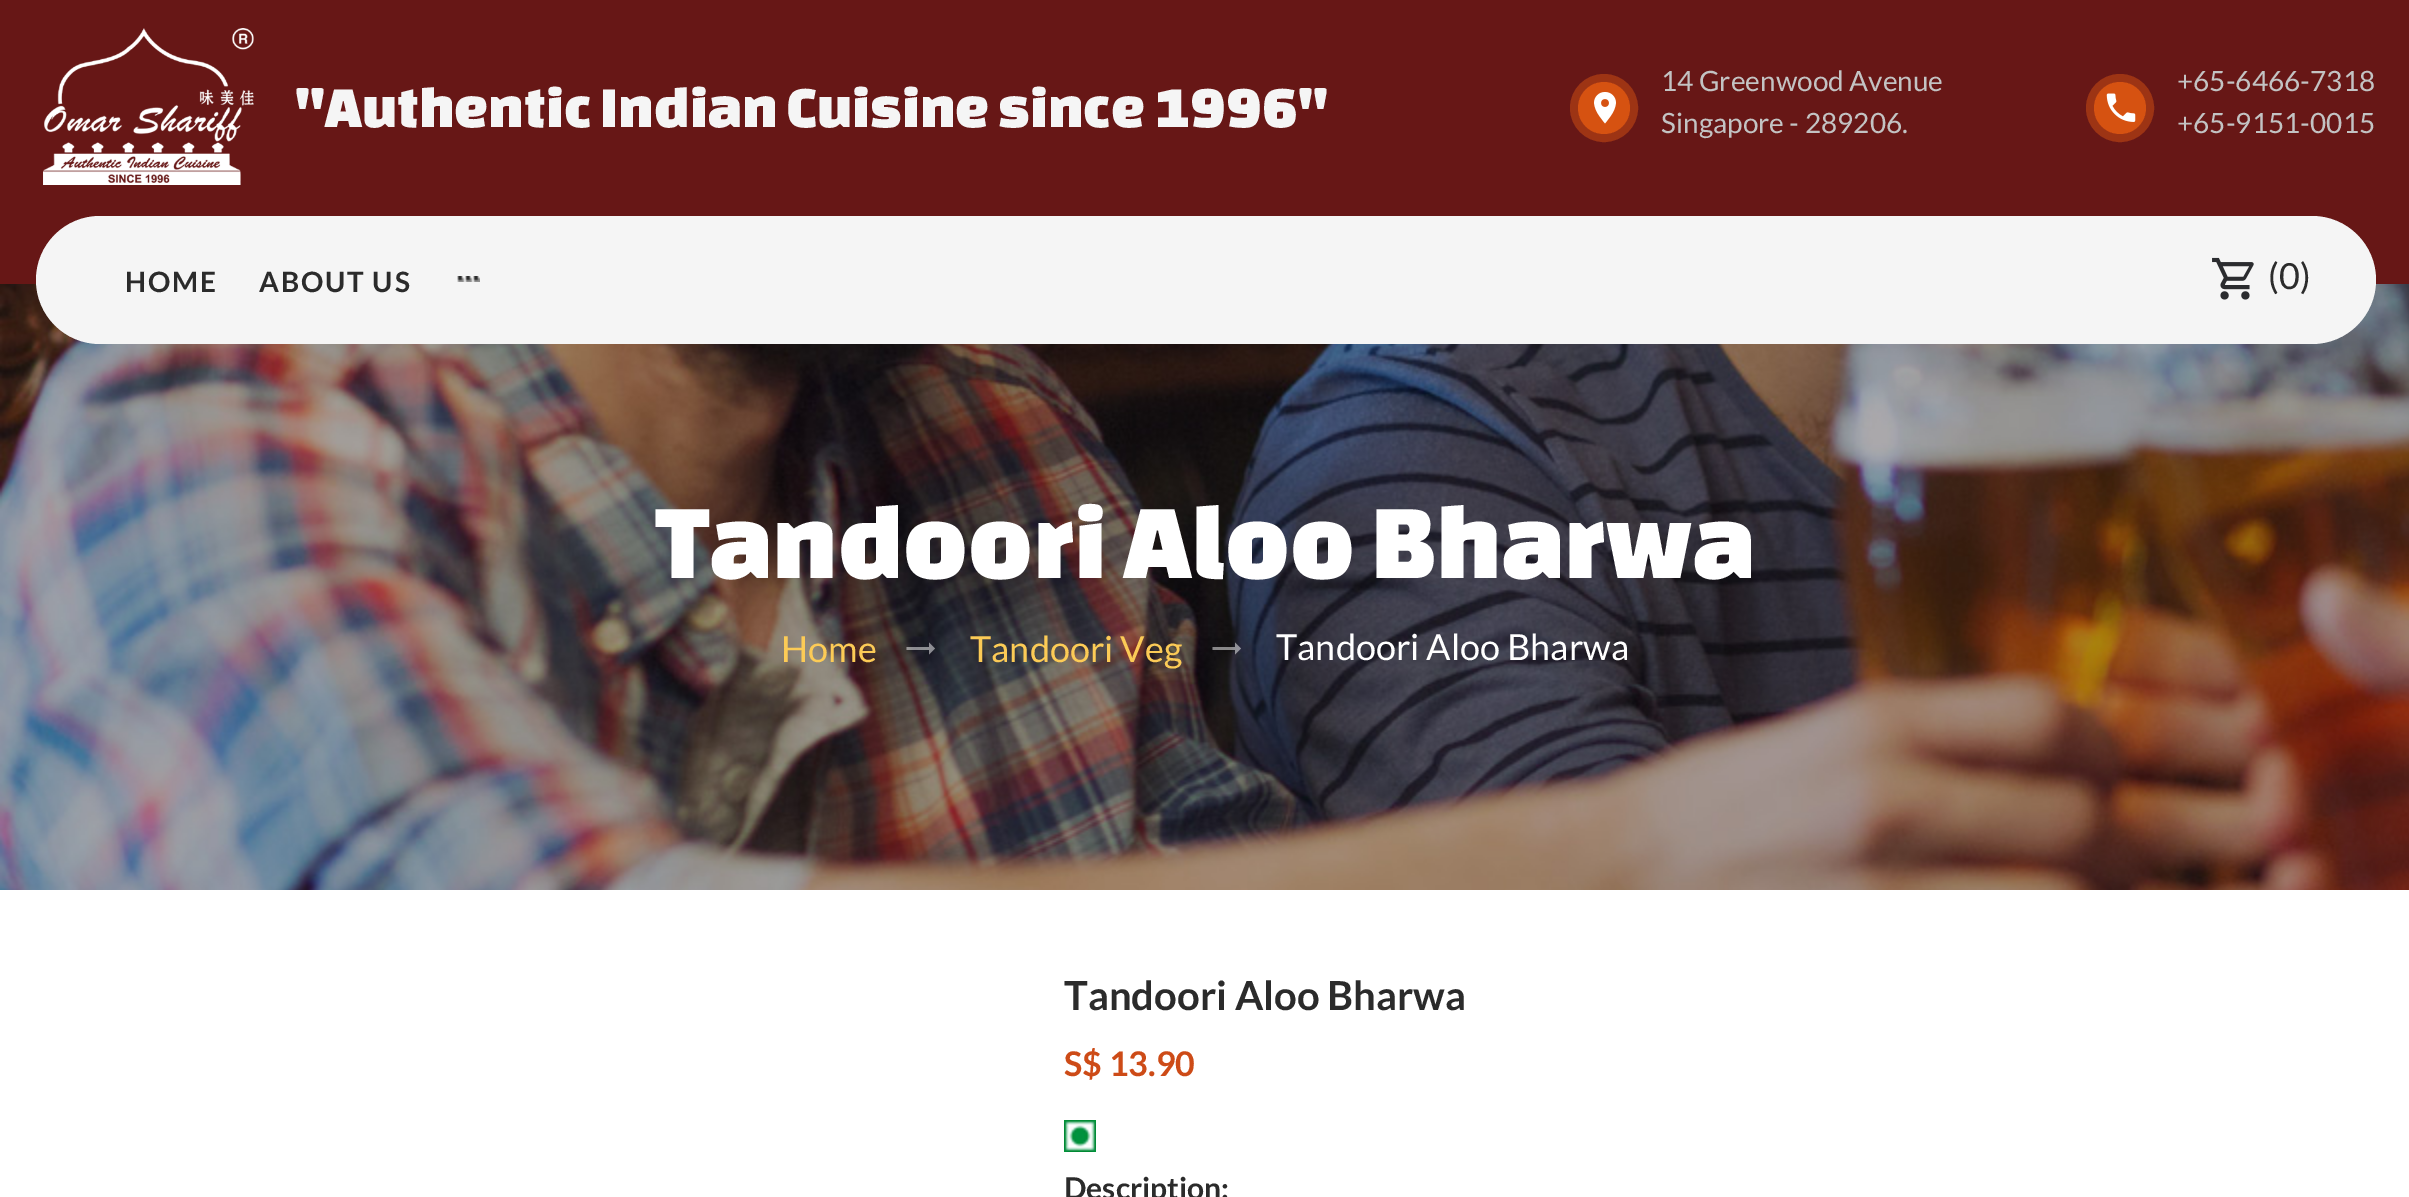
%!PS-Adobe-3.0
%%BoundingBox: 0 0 2409 1197
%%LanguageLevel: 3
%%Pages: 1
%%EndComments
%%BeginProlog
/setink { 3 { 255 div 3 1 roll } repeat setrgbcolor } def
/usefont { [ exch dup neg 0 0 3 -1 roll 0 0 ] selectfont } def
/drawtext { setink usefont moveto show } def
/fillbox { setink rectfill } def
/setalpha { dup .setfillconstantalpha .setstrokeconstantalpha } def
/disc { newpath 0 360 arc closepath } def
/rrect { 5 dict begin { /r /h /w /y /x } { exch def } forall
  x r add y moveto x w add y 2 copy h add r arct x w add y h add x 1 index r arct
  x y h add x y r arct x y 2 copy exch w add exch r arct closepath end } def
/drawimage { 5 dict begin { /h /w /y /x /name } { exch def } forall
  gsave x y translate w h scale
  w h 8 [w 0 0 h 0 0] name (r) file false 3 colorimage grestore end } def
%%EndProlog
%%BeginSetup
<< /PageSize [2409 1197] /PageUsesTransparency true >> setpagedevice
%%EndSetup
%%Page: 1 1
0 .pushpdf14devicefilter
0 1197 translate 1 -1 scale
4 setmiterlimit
0 0 2409 1197 255 255 255 fillbox
0 0 2409 284 103 23 22 fillbox
(assets/img1.rgb) 43 28 211 157 drawimage
("Authentic Indian Cuisine since 1996") 295 127 /ChangaOne-Regular 60 245 245 245 drawtext
157 52 20 setink
8 setlinewidth
1604 108 30 disc stroke
214 82 17 setink
1604 108 26 disc fill
(assets/img2.rgb) 1594 92 22 32 drawimage
(14 Greenwood Avenue) 1661 91 /Lato-Regular 28 195 195 195 drawtext
(Singapore - 289206.) 1661 133 /Lato-Regular 28 195 195 195 drawtext
157 52 20 setink
2120 108 30 disc stroke
214 82 17 setink
2120 108 26 disc fill
(assets/img3.rgb) 2106 93 30 29 drawimage
(+65-6466-7318) 2177 91 /Lato-Regular 28 195 195 195 drawtext
(+65-9151-0015) 2177 133 /Lato-Regular 28 195 195 195 drawtext
(assets/img6.rgb) 0 284 2409 606 drawimage
245 245 245 setink
36 216 2340 128 64 rrect fill
/Lato-Bold 28 usefont
43 43 43 setink
125 292 moveto 1.75 0 (HOME) ashow
259 292 moveto 1.75 0 (ABOUT US) ashow
(assets/img4.rgb) 457 276 23 6 drawimage
(assets/img5.rgb) 2212 257 42 43 drawimage
(\(0\)) 2268 289 /Lato-Regular 36 43 43 43 drawtext
(Tandoori Aloo Bharwa) 655 578 /ChangaOne-Regular 110 255 255 255 drawtext
(Home) 781 662 /Lato-Regular 36 252 203 86 drawtext
0.5 setalpha
255 255 255 setink
935 648.5 moveto 929 642.5 lineto 929 647 lineto 906.5 647 lineto 906.5 650 lineto 929 650 lineto 929 654.5 lineto closepath fill
1 setalpha
(Tandoori Veg) 970 662 /Lato-Regular 36 252 203 86 drawtext
0.5 setalpha
255 255 255 setink
1241 648.5 moveto 1235 642.5 lineto 1235 647 lineto 1212.5 647 lineto 1212.5 650 lineto 1235 650 lineto 1235 654.5 lineto closepath fill
1 setalpha
(Tandoori Aloo Bharwa) 1276 660 /Lato-Regular 36 255 255 255 drawtext
(Tandoori Aloo Bharwa) 1064 1010 /Lato-Bold 40 43 43 43 drawtext
(S$ 13.90) 1064 1076 /Lato-Bold 34 205 75 23 drawtext
(assets/img7.rgb) 1064 1120 32 32 drawimage
(Description:) 1064 1199 /Lato-Bold 30 43 43 43 drawtext
.poppdf14devicefilter showpage
%%EOF
